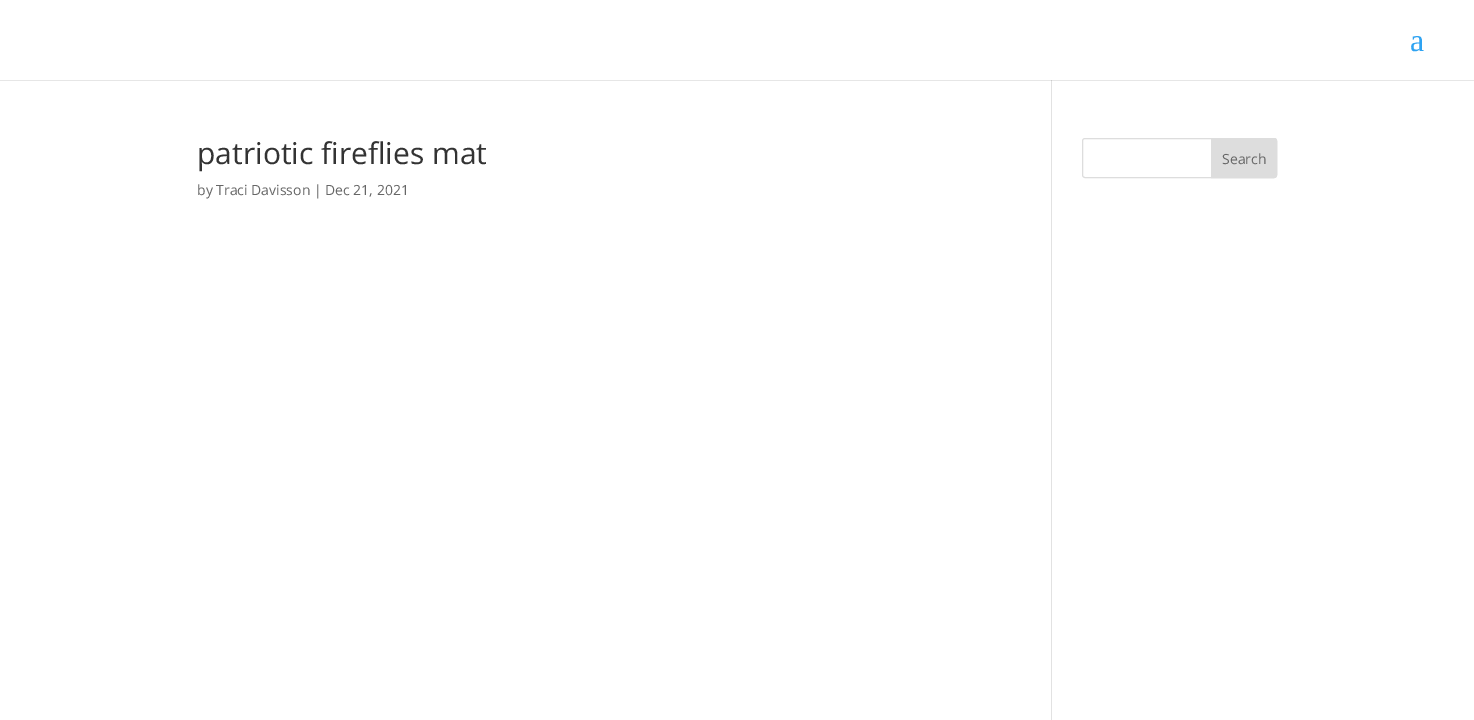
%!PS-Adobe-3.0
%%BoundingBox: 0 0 1474 720
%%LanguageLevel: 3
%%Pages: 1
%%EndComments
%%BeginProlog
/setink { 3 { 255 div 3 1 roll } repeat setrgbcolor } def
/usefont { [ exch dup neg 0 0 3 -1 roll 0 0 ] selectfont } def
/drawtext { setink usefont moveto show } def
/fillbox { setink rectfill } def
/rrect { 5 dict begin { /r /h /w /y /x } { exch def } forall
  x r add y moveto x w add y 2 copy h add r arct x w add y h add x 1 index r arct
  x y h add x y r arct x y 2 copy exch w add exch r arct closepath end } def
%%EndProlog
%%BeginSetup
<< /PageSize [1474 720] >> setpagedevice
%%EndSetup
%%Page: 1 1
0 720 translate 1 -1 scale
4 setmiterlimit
0 0 1474 720 255 255 255 fillbox
0 80 1474 1 230 230 230 fillbox
(a) 1410 51 /LiberationSerif-Regular 32 46 163 242 drawtext
1051 80 1 640 226 226 226 fillbox
1051 80 1 1 203 203 203 fillbox
(patriotic fireflies mat) 197 164 /OpenSans-Regular 30 51 51 51 drawtext
(by Traci Davisson | Dec 21, 2021) 197 195 /OpenSans-Regular 14 102 102 102 drawtext
221 221 221 setink
1082.5 138.5 194 39 2.5 rrect stroke
1211.5 138.5 moveto 1274 138.5 lineto 1275.5 138.5 1276.5 139.5 1276.5 141 curveto 1276.5 175 lineto 1276.5 176.5 1275.5 177.5 1274 177.5 curveto 1211.5 177.5 lineto closepath gsave fill grestore
stroke
(Search) 1222 164 /OpenSans-Regular 14 102 102 102 drawtext
showpage
%%EOF
